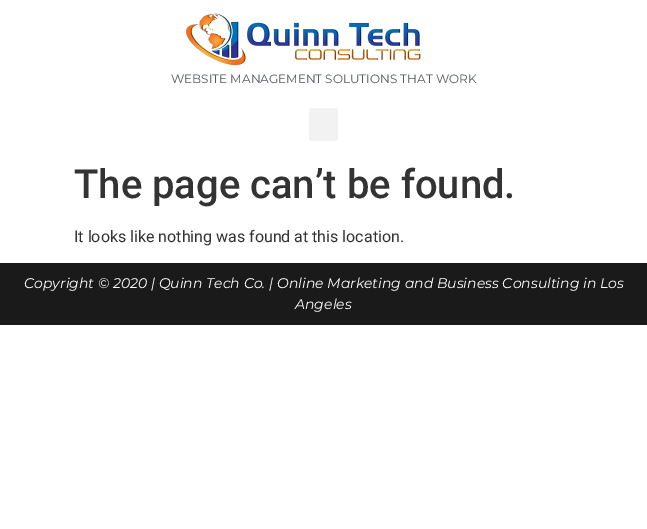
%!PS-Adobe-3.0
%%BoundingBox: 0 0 647 529
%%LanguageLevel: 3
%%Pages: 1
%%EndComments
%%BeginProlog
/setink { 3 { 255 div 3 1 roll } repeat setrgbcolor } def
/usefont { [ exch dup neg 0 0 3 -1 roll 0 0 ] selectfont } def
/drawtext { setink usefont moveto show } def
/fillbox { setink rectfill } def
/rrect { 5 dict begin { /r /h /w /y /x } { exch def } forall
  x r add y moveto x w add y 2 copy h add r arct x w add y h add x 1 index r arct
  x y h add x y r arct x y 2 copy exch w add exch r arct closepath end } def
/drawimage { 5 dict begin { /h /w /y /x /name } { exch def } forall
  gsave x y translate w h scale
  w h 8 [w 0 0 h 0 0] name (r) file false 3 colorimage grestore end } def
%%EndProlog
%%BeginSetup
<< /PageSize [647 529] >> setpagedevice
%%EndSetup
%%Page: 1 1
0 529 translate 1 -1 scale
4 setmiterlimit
0 0 647 529 255 255 255 fillbox
(assets/img1.rgb) 185 13 236 53 drawimage
(WEBSITE MANAGEMENT SOLUTIONS THAT WORK) 171 83 /Montserrat-Regular 12 84 89 95 drawtext
242 242 242 setink
309 108 29 33 3 rrect fill
(The page can’t be found.) 74 198 /Roboto-Medium 40 51 51 51 drawtext
(It looks like nothing was found at this location.) 74 242 /Roboto-Regular 16 51 51 51 drawtext
0 263 647 62 26 26 26 fillbox
(Copyright © 2020 | Quinn Tech Co. | Online Marketing and Business Consulting in Los) 24 288 /Montserrat-Italic 14 255 255 255 drawtext
(Angeles) 295 309 /Montserrat-Italic 14 255 255 255 drawtext
showpage
%%EOF
